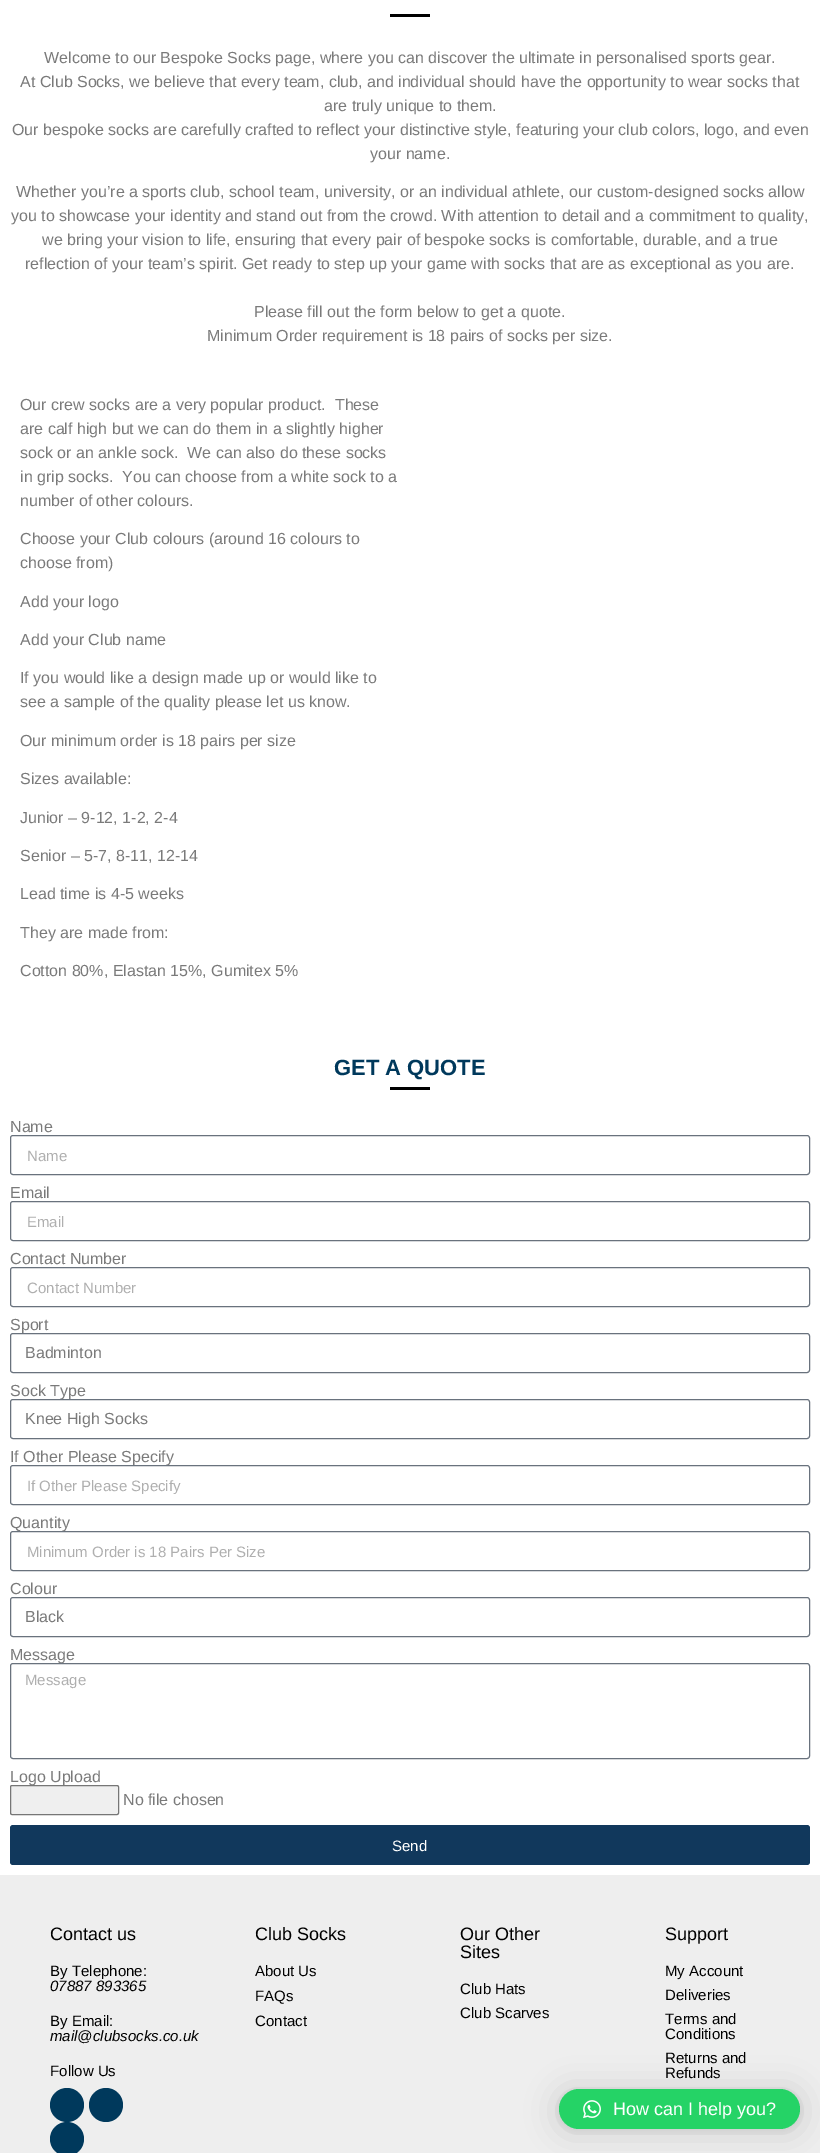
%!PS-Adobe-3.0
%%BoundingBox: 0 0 820 2153
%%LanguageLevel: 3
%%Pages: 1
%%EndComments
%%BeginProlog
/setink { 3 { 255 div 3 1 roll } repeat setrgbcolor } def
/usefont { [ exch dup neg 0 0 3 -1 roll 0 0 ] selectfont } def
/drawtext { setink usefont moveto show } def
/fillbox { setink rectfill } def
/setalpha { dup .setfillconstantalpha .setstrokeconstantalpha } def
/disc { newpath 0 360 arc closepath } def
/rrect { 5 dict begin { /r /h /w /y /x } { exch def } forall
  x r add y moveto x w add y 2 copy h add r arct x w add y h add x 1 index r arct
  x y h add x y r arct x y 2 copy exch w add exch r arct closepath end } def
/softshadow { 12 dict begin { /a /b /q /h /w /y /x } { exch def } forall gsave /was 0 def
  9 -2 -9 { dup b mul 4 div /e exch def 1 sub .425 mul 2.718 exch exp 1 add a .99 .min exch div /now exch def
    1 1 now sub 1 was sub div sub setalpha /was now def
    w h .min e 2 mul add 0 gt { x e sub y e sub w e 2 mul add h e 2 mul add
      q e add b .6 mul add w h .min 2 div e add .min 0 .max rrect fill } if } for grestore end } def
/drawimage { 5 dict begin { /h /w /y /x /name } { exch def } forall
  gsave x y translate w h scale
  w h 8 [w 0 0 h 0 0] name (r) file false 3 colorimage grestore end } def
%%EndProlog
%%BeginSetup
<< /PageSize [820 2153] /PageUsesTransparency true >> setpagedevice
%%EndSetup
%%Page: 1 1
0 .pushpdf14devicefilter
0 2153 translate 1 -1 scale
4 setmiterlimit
0 0 820 2153 255 255 255 fillbox
390 14 40 3 0 0 0 fillbox
(Welcome to our Bespoke Socks page, where you can discover the ultimate in personalised sports gear.) 44 63 /LiberationSans-Regular 16 122 122 122 drawtext
(At Club Socks, we believe that every team, club, and individual should have the opportunity to wear socks that) 20 87 /LiberationSans-Regular 16 122 122 122 drawtext
(are truly unique to them.) 324 111 /LiberationSans-Regular 16 122 122 122 drawtext
(Our bespoke socks are carefully crafted to reflect your distinctive style, featuring your club colors, logo, and even) 12 135 /LiberationSans-Regular 16 122 122 122 drawtext
(your name.) 370 159 /LiberationSans-Regular 16 122 122 122 drawtext
(Whether you’re a sports club, school team, university, or an individual athlete, our custom-designed socks allow) 16 197 /LiberationSans-Regular 16 122 122 122 drawtext
(you to showcase your identity and stand out from the crowd. With attention to detail and a commitment to quality,) 11 221 /LiberationSans-Regular 16 122 122 122 drawtext
(we bring your vision to life, ensuring that every pair of bespoke socks is comfortable, durable, and a true) 42 245 /LiberationSans-Regular 16 122 122 122 drawtext
(reflection of your team’s spirit. Get ready to step up your game with socks that are as exceptional as you are.) 25 269 /LiberationSans-Regular 16 122 122 122 drawtext
(Please fill out the form below to get a quote.) 254 317 /LiberationSans-Regular 16 122 122 122 drawtext
(Minimum Order requirement is 18 pairs of socks per size.) 207 341 /LiberationSans-Regular 16 122 122 122 drawtext
(Our crew socks are a very popular product.  These) 20 410 /LiberationSans-Regular 16 122 122 122 drawtext
(are calf high but we can do them in a slightly higher) 20 434 /LiberationSans-Regular 16 122 122 122 drawtext
(sock or an ankle sock.  We can also do these socks) 20 458 /LiberationSans-Regular 16 122 122 122 drawtext
(in grip socks.  You can choose from a white sock to a) 20 482 /LiberationSans-Regular 16 122 122 122 drawtext
(number of other colours.) 20 506 /LiberationSans-Regular 16 122 122 122 drawtext
(Choose your Club colours \(around 16 colours to) 20 544 /LiberationSans-Regular 16 122 122 122 drawtext
(choose from\)) 20 568 /LiberationSans-Regular 16 122 122 122 drawtext
(Add your logo) 20 607 /LiberationSans-Regular 16 122 122 122 drawtext
(Add your Club name) 20 645 /LiberationSans-Regular 16 122 122 122 drawtext
(If you would like a design made up or would like to) 20 683 /LiberationSans-Regular 16 122 122 122 drawtext
(see a sample of the quality please let us know.) 20 707 /LiberationSans-Regular 16 122 122 122 drawtext
(Our minimum order is 18 pairs per size) 20 746 /LiberationSans-Regular 16 122 122 122 drawtext
(Sizes available:) 20 784 /LiberationSans-Regular 16 122 122 122 drawtext
(Junior – 9-12, 1-2, 2-4) 20 823 /LiberationSans-Regular 16 122 122 122 drawtext
(Senior – 5-7, 8-11, 12-14) 20 861 /LiberationSans-Regular 16 122 122 122 drawtext
(Lead time is 4-5 weeks) 20 899 /LiberationSans-Regular 16 122 122 122 drawtext
(They are made from:) 20 938 /LiberationSans-Regular 16 122 122 122 drawtext
(Cotton 80%, Elastan 15%, Gumitex 5%) 20 976 /LiberationSans-Regular 16 122 122 122 drawtext
(GET A QUOTE) 334 1075 /LiberationSans-Bold 22 0 57 92 drawtext
390 1087 40 3 0 0 0 fillbox
(Name) 10 1132 /LiberationSans-Regular 16 122 122 122 drawtext
105 114 125 setink
10.5 1135.5 799 39 2.5 rrect stroke
(Name) 27 1161 /LiberationSans-Regular 15 175 175 175 drawtext
(Email) 10 1198 /LiberationSans-Regular 16 122 122 122 drawtext
105 114 125 setink
10.5 1201.5 799 39 2.5 rrect stroke
(Email) 27 1227 /LiberationSans-Regular 15 175 175 175 drawtext
(Contact Number) 10 1264 /LiberationSans-Regular 16 122 122 122 drawtext
105 114 125 setink
10.5 1267.5 799 39 2.5 rrect stroke
(Contact Number) 27 1293 /LiberationSans-Regular 15 175 175 175 drawtext
(Sport) 10 1330 /LiberationSans-Regular 16 122 122 122 drawtext
255 255 255 setink
10.5 1333.5 799 39 2.5 rrect gsave fill grestore
105 114 125 setink
stroke
(Badminton) 25 1358 /LiberationSans-Regular 16 122 122 122 drawtext
(Sock Type) 10 1396 /LiberationSans-Regular 16 122 122 122 drawtext
255 255 255 setink
10.5 1399.5 799 39 2.5 rrect gsave fill grestore
105 114 125 setink
stroke
(Knee High Socks) 25 1424 /LiberationSans-Regular 16 122 122 122 drawtext
(If Other Please Specify) 10 1462 /LiberationSans-Regular 16 122 122 122 drawtext
255 255 255 setink
10.5 1465.5 799 39 2.5 rrect gsave fill grestore
105 114 125 setink
stroke
gsave
27 1477 766 17 rectclip
(If Other Please Specify) 27 1491 /LiberationSans-Regular 15 175 175 175 drawtext
grestore
(Quantity) 10 1528 /LiberationSans-Regular 16 122 122 122 drawtext
255 255 255 setink
10.5 1531.5 799 39 2.5 rrect gsave fill grestore
105 114 125 setink
stroke
(Minimum Order is 18 Pairs Per Size) 27 1557 /LiberationSans-Regular 15 175 175 175 drawtext
(Colour) 10 1594 /LiberationSans-Regular 16 122 122 122 drawtext
105 114 125 setink
10.5 1597.5 799 39 2.5 rrect stroke
(Black) 25 1622 /LiberationSans-Regular 16 122 122 122 drawtext
(Message) 10 1660 /LiberationSans-Regular 16 122 122 122 drawtext
255 255 255 setink
10.5 1663.5 799 95 2.5 rrect gsave fill grestore
105 114 125 setink
stroke
(Message) 25 1685 /LiberationSans-Regular 15 175 175 175 drawtext
(Logo Upload) 10 1782 /LiberationSans-Regular 16 122 122 122 drawtext
30 1785 35 1 255 255 255 fillbox
239 239 239 setink
10.5 1785.5 108 29 1.5 rrect gsave fill grestore
118 118 118 setink
stroke
(No file chosen) 123 1805 /LiberationSans-Regular 16 122 122 122 drawtext
17 56 92 setink
10 1825 800 40 3 rrect fill
(Send) 392 1851 /LiberationSans-Regular 15 255 255 255 drawtext
0 1875 820 278 238 238 238 fillbox
(Contact us) 50 1940 /LiberationSans-Regular 18 0 0 0 drawtext
(By Telephone:) 50 1976 /LiberationSans-Regular 15 0 0 0 drawtext
(07887 893365) 50 1991 /LiberationSans-Italic 15 0 0 0 drawtext
(By Email:) 50 2026 /LiberationSans-Regular 15 0 0 0 drawtext
(mail@clubsocks.co.uk) 50 2041 /LiberationSans-Italic 15 0 0 0 drawtext
(Follow Us) 50 2076 /LiberationSans-Regular 15 0 0 0 drawtext
0 57 92 setink
67 2105 17 disc fill
106 2105 17 disc fill
67 2139 17 disc fill
(Club Socks) 255 1940 /LiberationSans-Regular 18 0 0 0 drawtext
(About Us) 255 1976 /LiberationSans-Regular 15 0 0 0 drawtext
(FAQs) 255 2001 /LiberationSans-Regular 15 0 0 0 drawtext
(Contact) 255 2026 /LiberationSans-Regular 15 0 0 0 drawtext
(Our Other) 460 1940 /LiberationSans-Regular 18 0 0 0 drawtext
(Sites) 460 1958 /LiberationSans-Regular 18 0 0 0 drawtext
(Club Hats) 460 1994 /LiberationSans-Regular 15 0 0 0 drawtext
(Club Scarves) 460 2018 /LiberationSans-Regular 15 0 0 0 drawtext
(Support) 665 1940 /LiberationSans-Regular 18 0 0 0 drawtext
(My Account) 665 1976 /LiberationSans-Regular 15 0 0 0 drawtext
(Deliveries) 665 2000 /LiberationSans-Regular 15 0 0 0 drawtext
(Terms and) 665 2024 /LiberationSans-Regular 15 0 0 0 drawtext
(Conditions) 665 2039 /LiberationSans-Regular 15 0 0 0 drawtext
(Returns and) 665 2063 /LiberationSans-Regular 15 0 0 0 drawtext
(Refunds) 665 2078 /LiberationSans-Regular 15 0 0 0 drawtext
559 2091 241 40 20 16 0.16 softshadow
559 2090 241 40 20 3 0.06 softshadow
37 211 102 setink
559 2089 241 40 20 rrect fill
(assets/img1.rgb) 583 2100 18 19 drawimage
(How can I help you?) 613 2115 /LiberationSans-Regular 18 255 255 255 drawtext
.poppdf14devicefilter showpage
%%EOF
